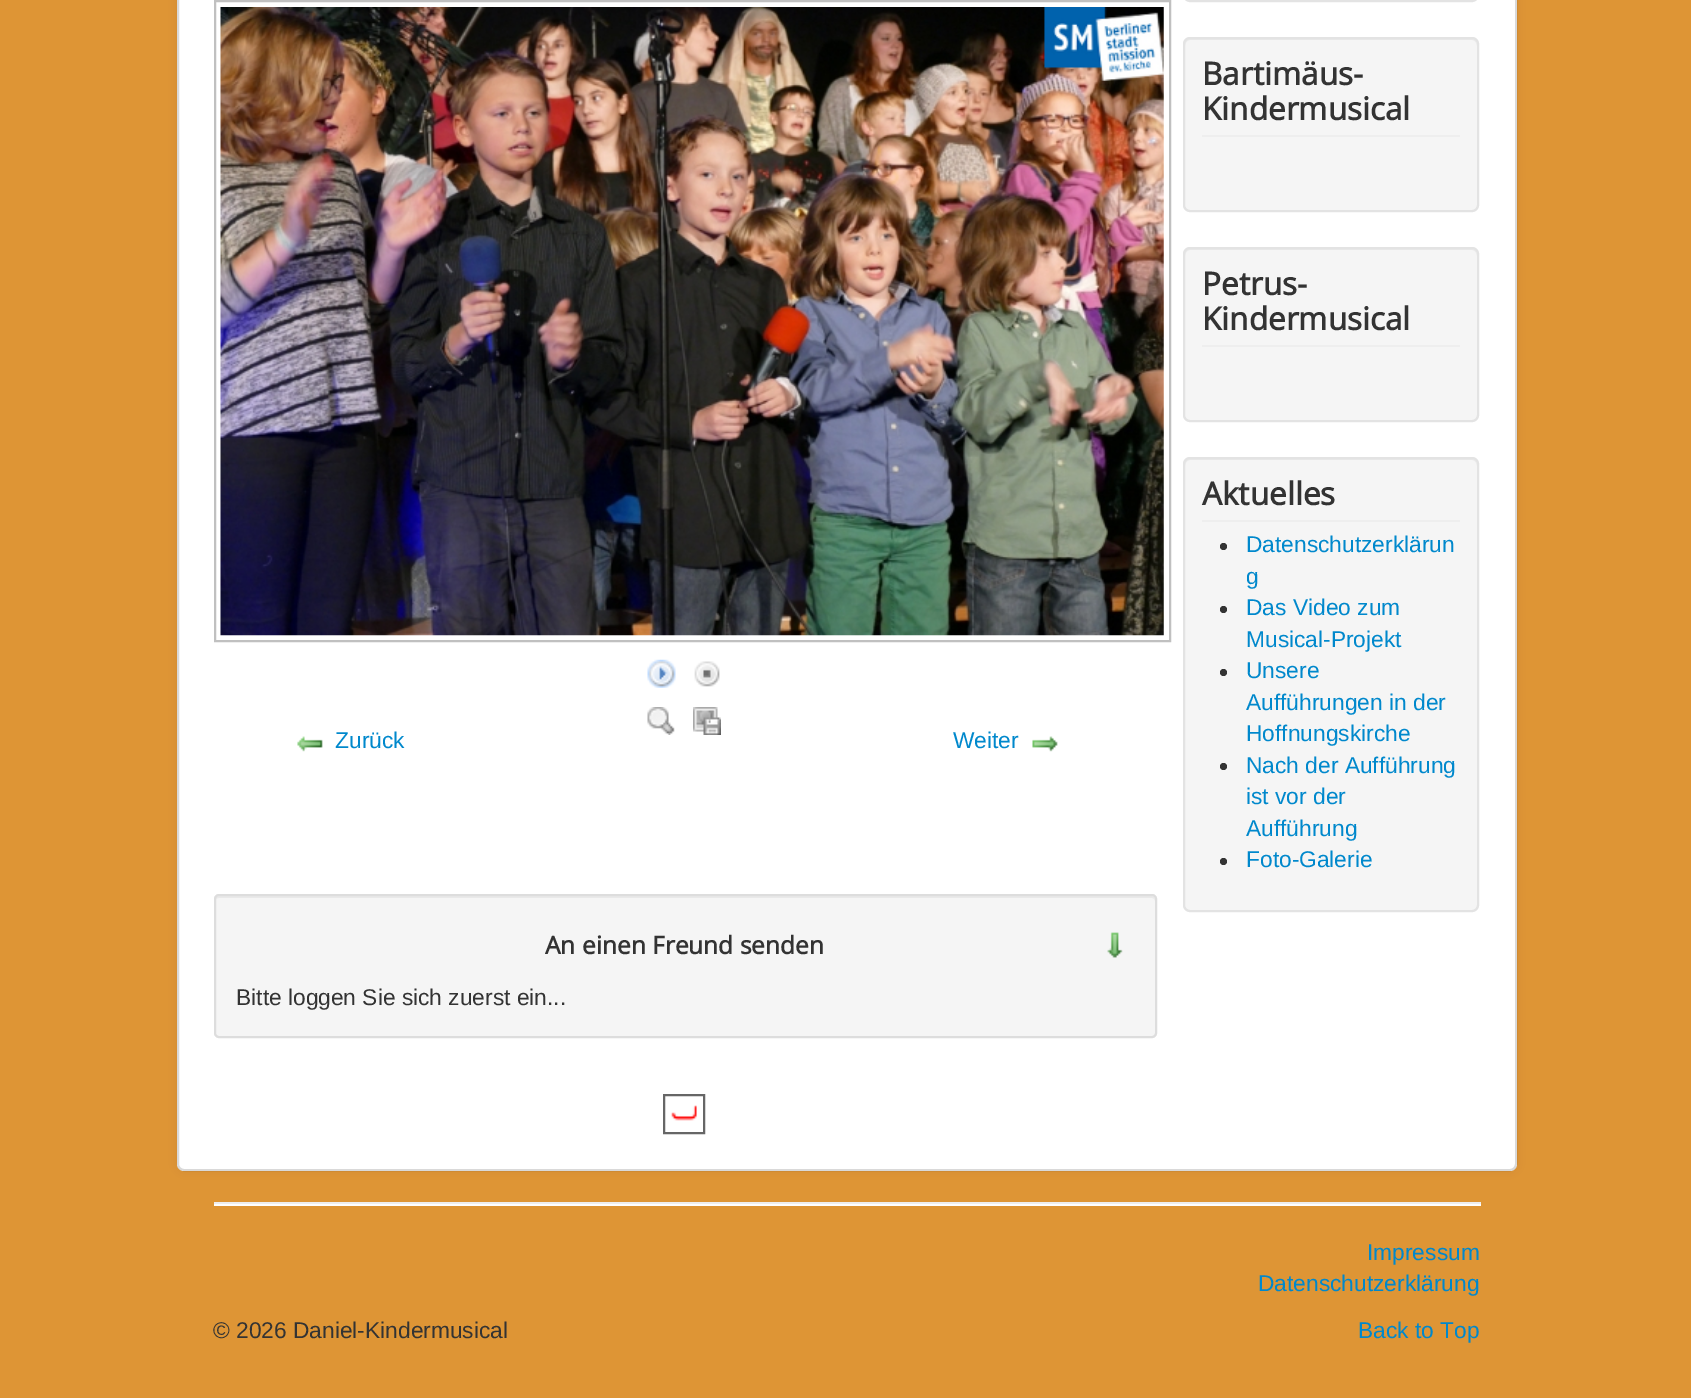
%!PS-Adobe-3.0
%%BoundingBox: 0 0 1691 1398
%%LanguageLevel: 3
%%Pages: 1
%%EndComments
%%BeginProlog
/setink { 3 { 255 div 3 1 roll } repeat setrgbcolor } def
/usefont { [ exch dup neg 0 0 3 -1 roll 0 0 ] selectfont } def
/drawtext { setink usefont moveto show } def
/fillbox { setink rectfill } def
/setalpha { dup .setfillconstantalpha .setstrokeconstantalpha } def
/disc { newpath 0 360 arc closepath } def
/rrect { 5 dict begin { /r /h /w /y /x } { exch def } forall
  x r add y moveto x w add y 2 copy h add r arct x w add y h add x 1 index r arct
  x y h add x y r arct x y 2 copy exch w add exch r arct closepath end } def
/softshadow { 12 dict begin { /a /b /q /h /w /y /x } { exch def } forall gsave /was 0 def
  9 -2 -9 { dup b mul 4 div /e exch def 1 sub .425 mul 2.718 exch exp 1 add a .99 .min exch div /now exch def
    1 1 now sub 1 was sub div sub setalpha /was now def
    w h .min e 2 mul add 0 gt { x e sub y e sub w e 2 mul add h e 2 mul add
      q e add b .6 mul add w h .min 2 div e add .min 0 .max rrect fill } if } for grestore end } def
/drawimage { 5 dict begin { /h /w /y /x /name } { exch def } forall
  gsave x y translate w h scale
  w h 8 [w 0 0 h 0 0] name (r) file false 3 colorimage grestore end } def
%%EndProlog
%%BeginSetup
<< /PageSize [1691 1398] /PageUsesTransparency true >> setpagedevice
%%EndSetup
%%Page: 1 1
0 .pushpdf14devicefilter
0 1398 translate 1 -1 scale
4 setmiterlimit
0 0 1691 1398 222 149 53 fillbox
0 0 0 setink
177 -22 1340 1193 7 5 0.05 softshadow
255 255 255 setink
177 -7 1340 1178 7 rrect fill
0.15 setalpha
0 0 0 setink
2 setlinewidth
178 -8 1338 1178 6 rrect stroke
1 setalpha
192 192 192 setink
215 1 955 640 rectstroke
(assets/img1.rgb) 220 7 944 629 drawimage
(assets/img2.rgb) 647 659 29 29 drawimage
(assets/img3.rgb) 694 661 26 26 drawimage
(assets/img4.rgb) 647 707 28 28 drawimage
(assets/img5.rgb) 693 707 28 28 drawimage
(assets/img6.rgb) 297 736 26 16 drawimage
(Zurück) 335 748 /LiberationSans-Regular 22.75 0 136 204 drawtext
(Weiter) 953 748 /LiberationSans-Regular 22.75 0 136 204 drawtext
(assets/img7.rgb) 1032 736 26 16 drawimage
245 245 245 setink
214 894 943 144 5 rrect fill
233 233 233 setink
219 898 moveto 1152 898 lineto 1153 898 1155 899 1155 901 curveto 1155 898 1154 896 1151 896 curveto 219 896 lineto 216 896 215 898 215 901 curveto 215 899 217 898 219 898 curveto closepath fill
221 221 221 setink
215 895 941 142 4 rrect stroke
(assets/img8.rgb) 1107 932 16 26 drawimage
(An einen Freund senden) 545 954 /OpenSans-Bold 24.5 51 51 51 drawtext
(Bitte loggen Sie sich zuerst ein...) 236 1005 /LiberationSans-Regular 22.75 51 51 51 drawtext
102 102 102 setink
664 1095 40 38 rectstroke
(assets/img9.rgb) 671 1105 26 16 drawimage
227 227 227 setink
1184 -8 294 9 6 rrect stroke
245 245 245 setink
1183 37 296 175 7 rrect fill
233 233 233 setink
1190 40 moveto 1472 40 lineto 1475 40 1477 43 1477 46 curveto 1477 43 1476 39 1472 39 curveto 1189 39 lineto 1185 40 1185 43 1185 46 curveto 1185 43 1187 40 1190 40 curveto closepath fill
227 227 227 setink
1184 38 294 173 6 rrect stroke
1202 135 258 2 238 238 238 fillbox
(Bartimäus-) 1202 85 /OpenSans-Bold 31.5 51 51 51 drawtext
(Kindermusical) 1202 120 /OpenSans-Bold 31.5 51 51 51 drawtext
245 245 245 setink
1183 247 296 175 7 rrect fill
233 233 233 setink
1190 250 moveto 1472 250 lineto 1475 250 1477 253 1477 256 curveto 1477 253 1476 249 1472 249 curveto 1189 249 lineto 1185 250 1185 253 1185 256 curveto 1185 253 1187 250 1190 250 curveto closepath fill
227 227 227 setink
1184 248 294 173 6 rrect stroke
1202 345 258 2 238 238 238 fillbox
(Petrus-) 1202 295 /OpenSans-Bold 31.5 51 51 51 drawtext
(Kindermusical) 1202 330 /OpenSans-Bold 31.5 51 51 51 drawtext
245 245 245 setink
1183 457 296 455 7 rrect fill
233 233 233 setink
1190 460 moveto 1472 460 lineto 1475 460 1477 463 1477 466 curveto 1477 463 1476 459 1472 459 curveto 1189 459 lineto 1185 460 1185 463 1185 466 curveto 1185 463 1187 460 1190 460 curveto closepath fill
227 227 227 setink
1184 458 294 453 6 rrect stroke
1202 520 258 2 238 238 238 fillbox
(Aktuelles) 1202 505 /OpenSans-Bold 31.5 51 51 51 drawtext
1223.5 546.5 3.5 disc fill
(Datenschutzerklärun) 1246 552 /LiberationSans-Regular 22.75 0 136 204 drawtext
(g) 1246 584 /LiberationSans-Regular 22.75 0 136 204 drawtext
51 51 51 setink
1223.5 609.5 3.5 disc fill
(Das Video zum) 1246 615 /LiberationSans-Regular 22.75 0 136 204 drawtext
(Musical-Projekt) 1246 647 /LiberationSans-Regular 22.75 0 136 204 drawtext
51 51 51 setink
1223.5 672.5 3.5 disc fill
(Unsere) 1246 678 /LiberationSans-Regular 22.75 0 136 204 drawtext
(Aufführungen in der) 1246 710 /LiberationSans-Regular 22.75 0 136 204 drawtext
(Hoffnungskirche) 1246 741 /LiberationSans-Regular 22.75 0 136 204 drawtext
51 51 51 setink
1223.5 766.5 3.5 disc fill
(Nach der Aufführung) 1246 773 /LiberationSans-Regular 22.75 0 136 204 drawtext
(ist vor der) 1246 804 /LiberationSans-Regular 22.75 0 136 204 drawtext
(Aufführung) 1246 836 /LiberationSans-Regular 22.75 0 136 204 drawtext
51 51 51 setink
1223.5 861.5 3.5 disc fill
(Foto-Galerie) 1246 867 /LiberationSans-Regular 22.75 0 136 204 drawtext
214 1202 1267 2 238 238 238 fillbox
214 1204 1267 2 255 255 255 fillbox
(Impressum) 1367 1260 /LiberationSans-Regular 22.75 0 136 204 drawtext
(Datenschutzerklärung) 1258 1291 /LiberationSans-Regular 22.75 0 136 204 drawtext
(© 2026 Daniel-Kindermusical) 213 1338 /LiberationSans-Regular 22.75 51 51 51 drawtext
(Back to Top) 1358 1338 /LiberationSans-Regular 22.75 0 136 204 drawtext
.poppdf14devicefilter showpage
%%EOF
